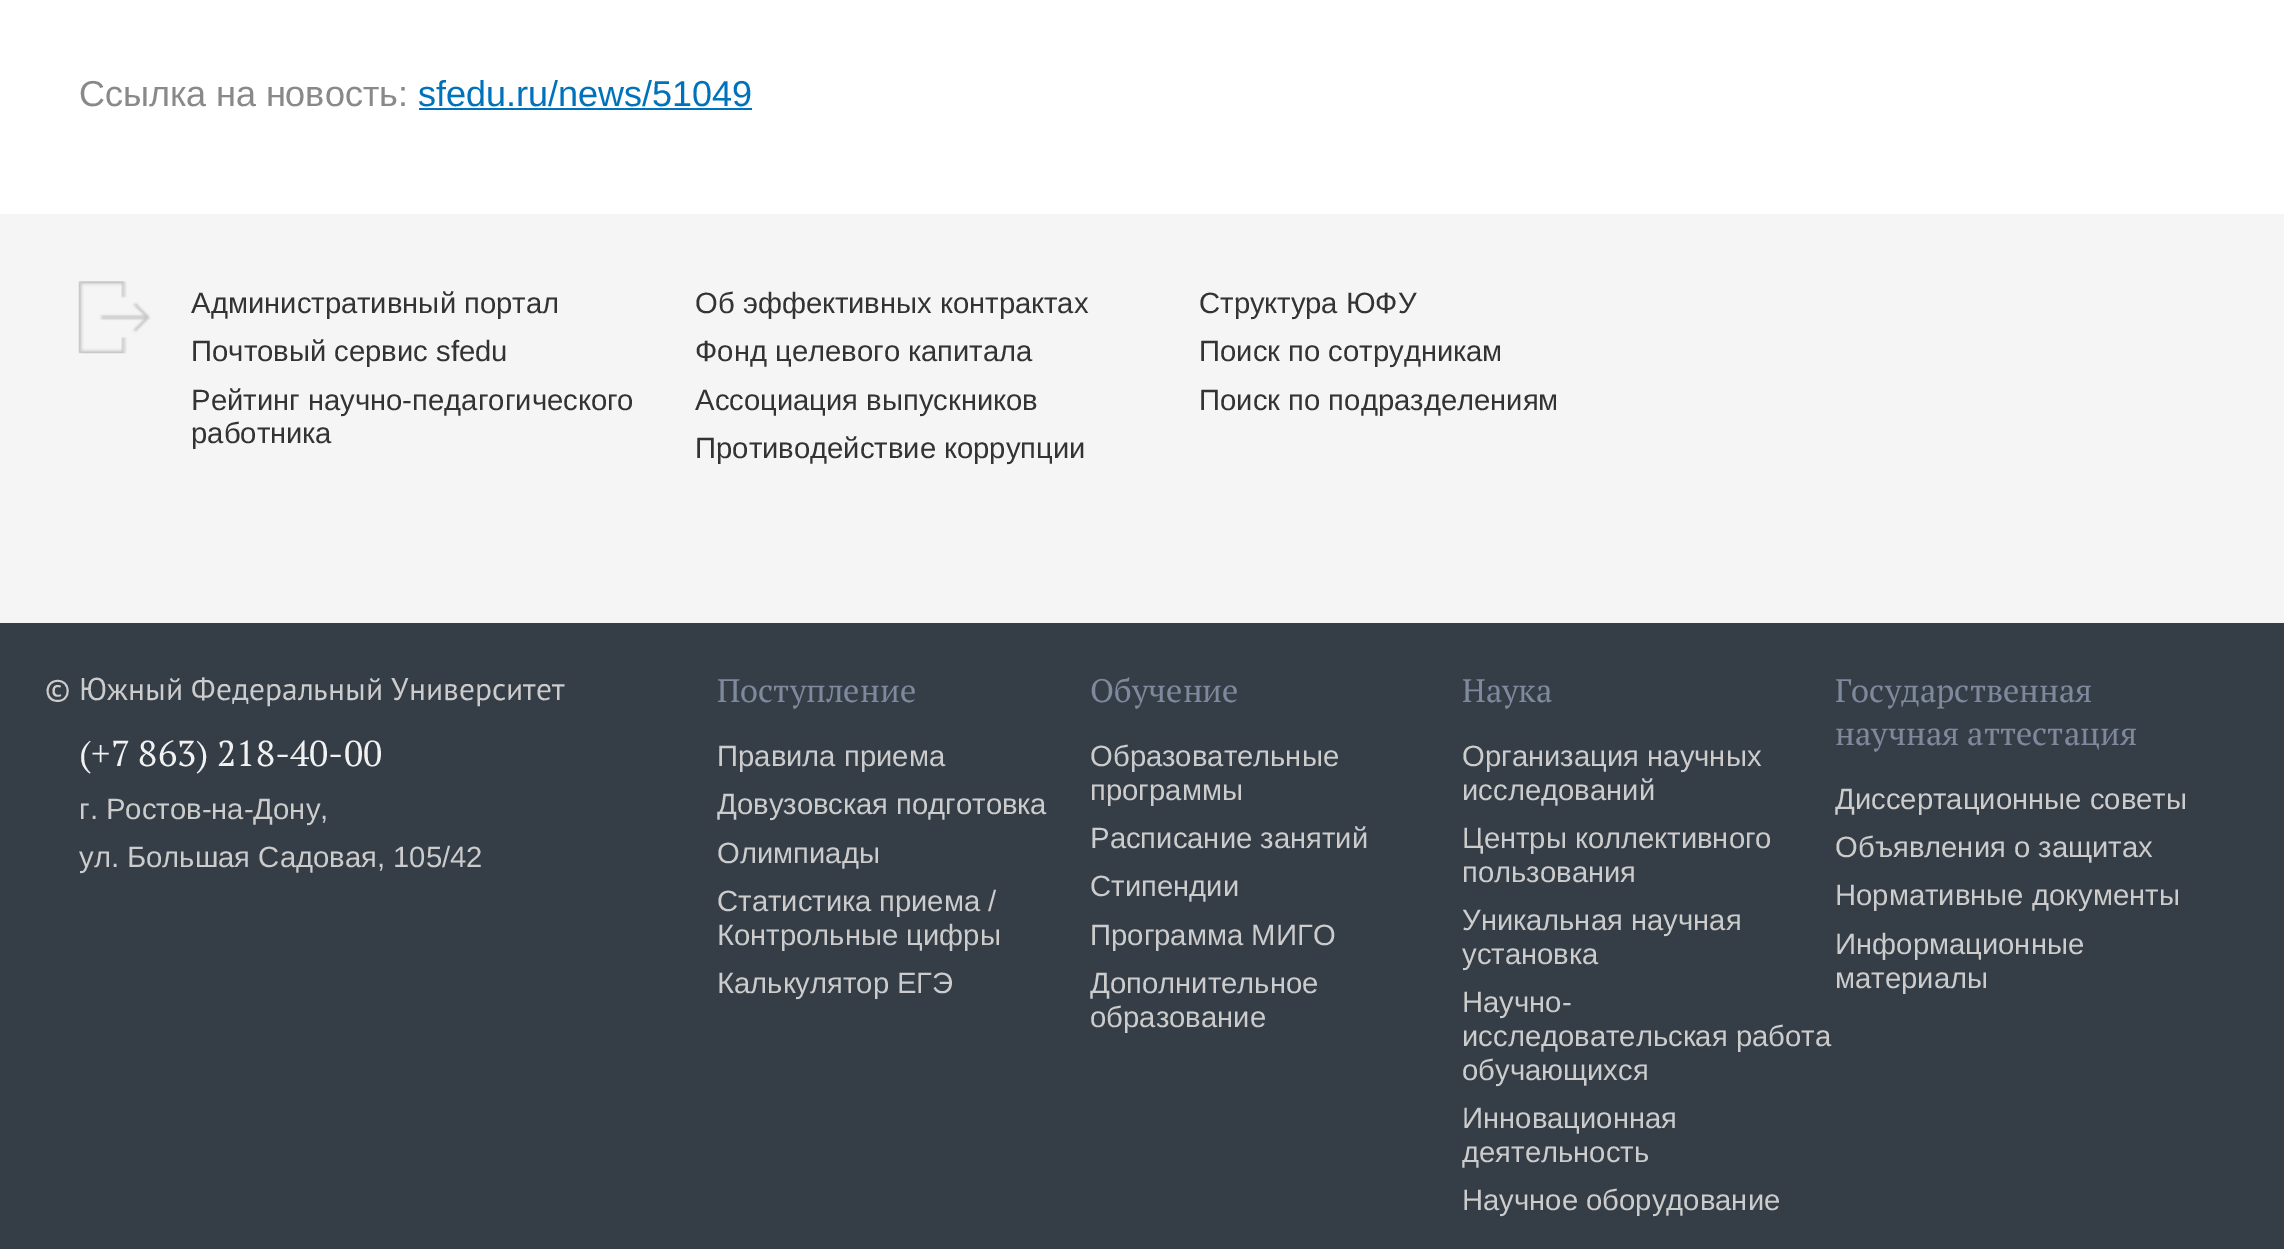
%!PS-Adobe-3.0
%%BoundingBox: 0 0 2284 1249
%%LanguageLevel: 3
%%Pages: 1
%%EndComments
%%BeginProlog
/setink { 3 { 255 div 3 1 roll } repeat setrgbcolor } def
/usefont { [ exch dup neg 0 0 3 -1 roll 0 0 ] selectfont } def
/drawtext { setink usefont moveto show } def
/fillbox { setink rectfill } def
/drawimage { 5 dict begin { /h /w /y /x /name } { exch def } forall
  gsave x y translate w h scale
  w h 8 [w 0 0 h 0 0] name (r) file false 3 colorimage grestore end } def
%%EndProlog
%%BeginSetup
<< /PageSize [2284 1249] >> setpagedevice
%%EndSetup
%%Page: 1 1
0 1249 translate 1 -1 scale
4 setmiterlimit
0 0 2284 1249 255 255 255 fillbox
(Ссылка на новость:) 79 106 /LiberationSans-Regular 36 137 137 137 drawtext
(sfedu.ru/news/51049) 418 106 /LiberationSans-Regular 36 0 114 188 drawtext
419 108 333 2 0 114 188 fillbox
0 214 2284 409 245 245 245 fillbox
(assets/img1.rgb) 78 281 73 73 drawimage
(Административный портал) 191 313 /LiberationSans-Regular 29.25 51 51 51 drawtext
(Почтовый сервис sfedu) 191 361 /LiberationSans-Regular 29.25 51 51 51 drawtext
(Рейтинг научно-педагогического) 191 410 /LiberationSans-Regular 29.25 51 51 51 drawtext
(работника) 191 443 /LiberationSans-Regular 29.25 51 51 51 drawtext
(Об эффективных контрактах) 695 313 /LiberationSans-Regular 29.25 51 51 51 drawtext
(Фонд целевого капитала) 695 361 /LiberationSans-Regular 29.25 51 51 51 drawtext
(Ассоциация выпускников) 695 410 /LiberationSans-Regular 29.25 51 51 51 drawtext
(Противодействие коррупции) 695 458 /LiberationSans-Regular 29.25 51 51 51 drawtext
(Структура ЮФУ) 1199 313 /LiberationSans-Regular 29.25 51 51 51 drawtext
(Поиск по сотрудникам) 1199 361 /LiberationSans-Regular 29.25 51 51 51 drawtext
(Поиск по подразделениям) 1199 410 /LiberationSans-Regular 29.25 51 51 51 drawtext
0 623 2284 626 53 62 71 fillbox
(©) 45 700 /PTSans-Regular 31.5 204 204 204 drawtext
(Южный Федеральный Университет) 79 700 /PTSans-Regular 31.5 204 204 204 drawtext
(\(+7 863\) 218-40-00) 79 766 /PTSerif-Regular 36 241 241 241 drawtext
(г. Ростов-на-Дону,) 79 819 /LiberationSans-Regular 29.25 204 204 204 drawtext
(ул. Большая Садовая, 105/42) 79 867 /LiberationSans-Regular 29.25 204 204 204 drawtext
(Поступление) 717 702 /PTSerif-Regular 32.5 126 137 158 drawtext
(Правила приема) 717 766 /LiberationSans-Regular 29.25 204 204 204 drawtext
(Довузовская подготовка) 717 814 /LiberationSans-Regular 29.25 204 204 204 drawtext
(Олимпиады) 717 863 /LiberationSans-Regular 29.25 204 204 204 drawtext
(Статистика приема /) 717 911 /LiberationSans-Regular 29.25 204 204 204 drawtext
(Контрольные цифры) 717 945 /LiberationSans-Regular 29.25 204 204 204 drawtext
(Калькулятор ЕГЭ) 717 993 /LiberationSans-Regular 29.25 204 204 204 drawtext
(Обучение) 1090 702 /PTSerif-Regular 32.5 126 137 158 drawtext
(Образовательные) 1090 766 /LiberationSans-Regular 29.25 204 204 204 drawtext
(программы) 1090 800 /LiberationSans-Regular 29.25 204 204 204 drawtext
(Расписание занятий) 1090 848 /LiberationSans-Regular 29.25 204 204 204 drawtext
(Стипендии) 1090 896 /LiberationSans-Regular 29.25 204 204 204 drawtext
(Программа МИГО) 1090 945 /LiberationSans-Regular 29.25 204 204 204 drawtext
(Дополнительное) 1090 993 /LiberationSans-Regular 29.25 204 204 204 drawtext
(образование) 1090 1027 /LiberationSans-Regular 29.25 204 204 204 drawtext
(Наука) 1462 702 /PTSerif-Regular 32.5 126 137 158 drawtext
(Организация научных) 1462 766 /LiberationSans-Regular 29.25 204 204 204 drawtext
(исследований) 1462 800 /LiberationSans-Regular 29.25 204 204 204 drawtext
(Центры коллективного) 1462 848 /LiberationSans-Regular 29.25 204 204 204 drawtext
(пользования) 1462 882 /LiberationSans-Regular 29.25 204 204 204 drawtext
(Уникальная научная) 1462 930 /LiberationSans-Regular 29.25 204 204 204 drawtext
(установка) 1462 964 /LiberationSans-Regular 29.25 204 204 204 drawtext
(Научно-) 1462 1012 /LiberationSans-Regular 29.25 204 204 204 drawtext
(исследовательская работа) 1462 1046 /LiberationSans-Regular 29.25 204 204 204 drawtext
(обучающихся) 1462 1080 /LiberationSans-Regular 29.25 204 204 204 drawtext
(Инновационная) 1462 1128 /LiberationSans-Regular 29.25 204 204 204 drawtext
(деятельность) 1462 1162 /LiberationSans-Regular 29.25 204 204 204 drawtext
(Научное оборудование) 1462 1210 /LiberationSans-Regular 29.25 204 204 204 drawtext
(Государственная) 1835 702 /PTSerif-Regular 32.5 126 137 158 drawtext
(научная аттестация) 1835 745 /PTSerif-Regular 32.5 126 137 158 drawtext
(Диссертационные советы) 1835 809 /LiberationSans-Regular 29.25 204 204 204 drawtext
(Объявления о защитах) 1835 857 /LiberationSans-Regular 29.25 204 204 204 drawtext
(Нормативные документы) 1835 905 /LiberationSans-Regular 29.25 204 204 204 drawtext
(Информационные) 1835 954 /LiberationSans-Regular 29.25 204 204 204 drawtext
(материалы) 1835 988 /LiberationSans-Regular 29.25 204 204 204 drawtext
showpage
%%EOF
